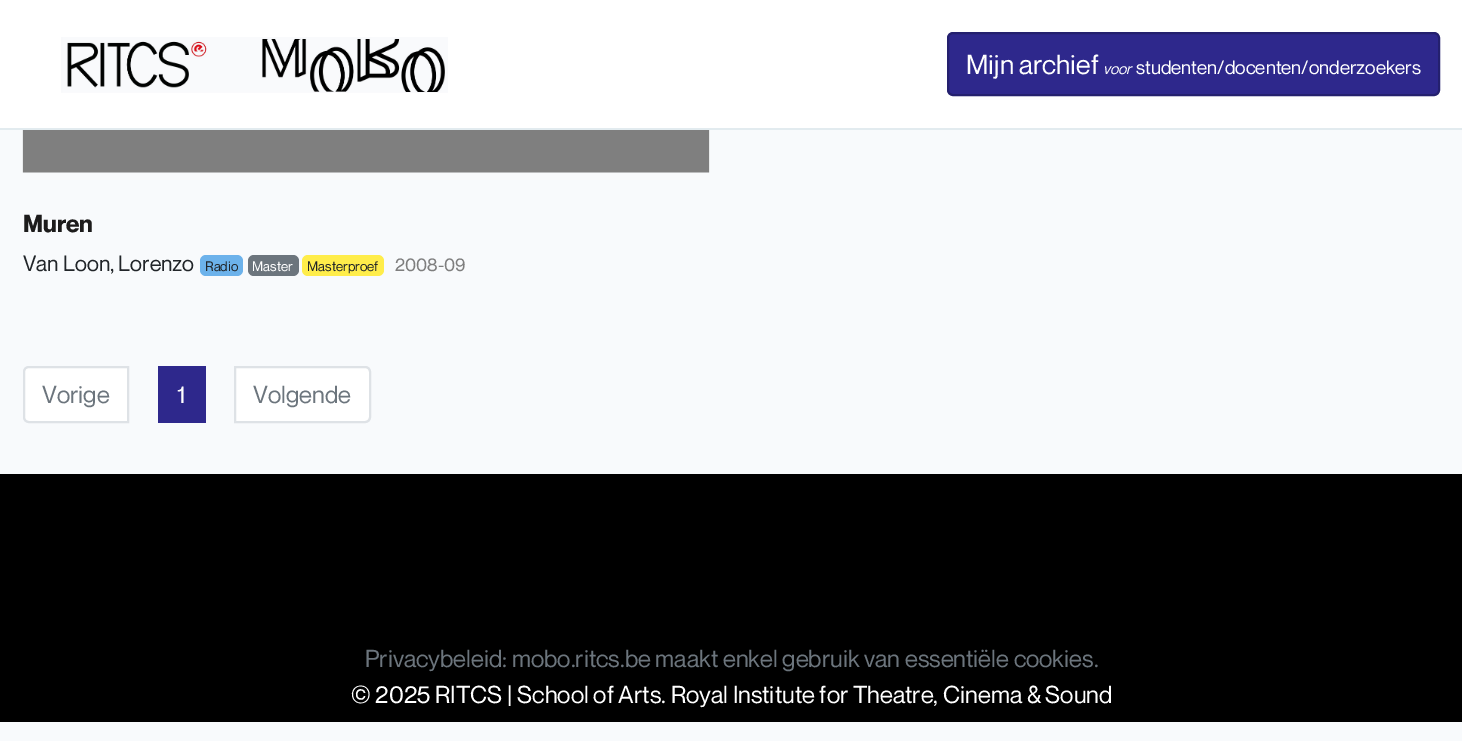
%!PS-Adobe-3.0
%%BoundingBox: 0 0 1462 741
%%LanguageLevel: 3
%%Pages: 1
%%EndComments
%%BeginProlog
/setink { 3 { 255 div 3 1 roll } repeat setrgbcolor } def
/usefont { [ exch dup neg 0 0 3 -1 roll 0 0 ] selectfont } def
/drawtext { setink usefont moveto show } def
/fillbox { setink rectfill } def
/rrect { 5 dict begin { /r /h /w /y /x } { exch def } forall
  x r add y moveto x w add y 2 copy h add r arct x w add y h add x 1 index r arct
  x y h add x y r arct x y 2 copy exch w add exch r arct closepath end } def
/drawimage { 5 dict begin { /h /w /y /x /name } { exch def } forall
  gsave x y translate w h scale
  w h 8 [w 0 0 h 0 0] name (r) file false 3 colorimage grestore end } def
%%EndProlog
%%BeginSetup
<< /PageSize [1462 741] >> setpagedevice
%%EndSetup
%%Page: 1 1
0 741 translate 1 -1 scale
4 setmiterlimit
0 0 1462 741 248 250 252 fillbox
0 0 1462 128 255 255 255 fillbox
0 128 1462 2 226 235 239 fillbox
(assets/img1.rgb) 61 37 387 56 drawimage
46 40 140 setink
948 33 491 62 5 rrect gsave fill grestore
36 32 110 setink
2 setlinewidth
stroke
(Mijn archief) 966 74 /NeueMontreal-Regular 27 255 255 255 drawtext
(voor) 1103 74 /NeueMontreal-Italic 15 255 255 255 drawtext
(studenten/docenten/onderzoekers) 1136 74 /NeueMontreal-Regular 18.9 255 255 255 drawtext
(assets/img2.rgb) 22 130 688 43 drawimage
(Muren) 23 232 /NeueMontreal-Bold 24 28 27 27 drawtext
(Van Loon, Lorenzo) 23 271 /NeueMontreal-Regular 21.5 33 37 41 drawtext
108 178 235 setink
200 255 43 21 6 rrect fill
(Radio) 205 271 /NeueMontreal-Regular 13.5 33 37 41 drawtext
108 117 125 setink
248 255 51 21 6 rrect fill
(Master) 252 271 /NeueMontreal-Regular 13.5 255 255 255 drawtext
255 237 74 setink
302 255 82 21 6 rrect fill
(Masterproef) 307 271 /NeueMontreal-Regular 13.5 33 37 41 drawtext
(2008-09) 395 271 /NeueMontreal-Regular 18 126 126 126 drawtext
255 255 255 setink
29 367 moveto 128 367 lineto 128 422 lineto 29 422 lineto 26 422 24 420 24 417 curveto 24 372 lineto 24 369 26 367 29 367 curveto closepath gsave fill grestore
222 226 230 setink
stroke
(Vorige) 42 403 /NeueMontreal-Regular 24 108 117 125 drawtext
158 366 48 57 46 40 140 fillbox
(1) 177 403 /NeueMontreal-Regular 24 255 255 255 drawtext
235 367 moveto 365 367 lineto 368 367 370 369 370 372 curveto 370 417 lineto 370 420 368 422 365 422 curveto 235 422 lineto closepath gsave fill grestore
222 226 230 setink
stroke
(Volgende) 253 403 /NeueMontreal-Regular 24 108 117 125 drawtext
0 474 1462 248 0 0 0 fillbox
(Privacybeleid: mobo.ritcs.be maakt enkel gebruik van essentiële cookies.) 365 667 /NeueMontreal-Regular 24 108 117 125 drawtext
(© 2025 RITCS | School of Arts. Royal Institute for Theatre, Cinema & Sound) 351 703 /NeueMontreal-Regular 24 255 255 255 drawtext
showpage
%%EOF
